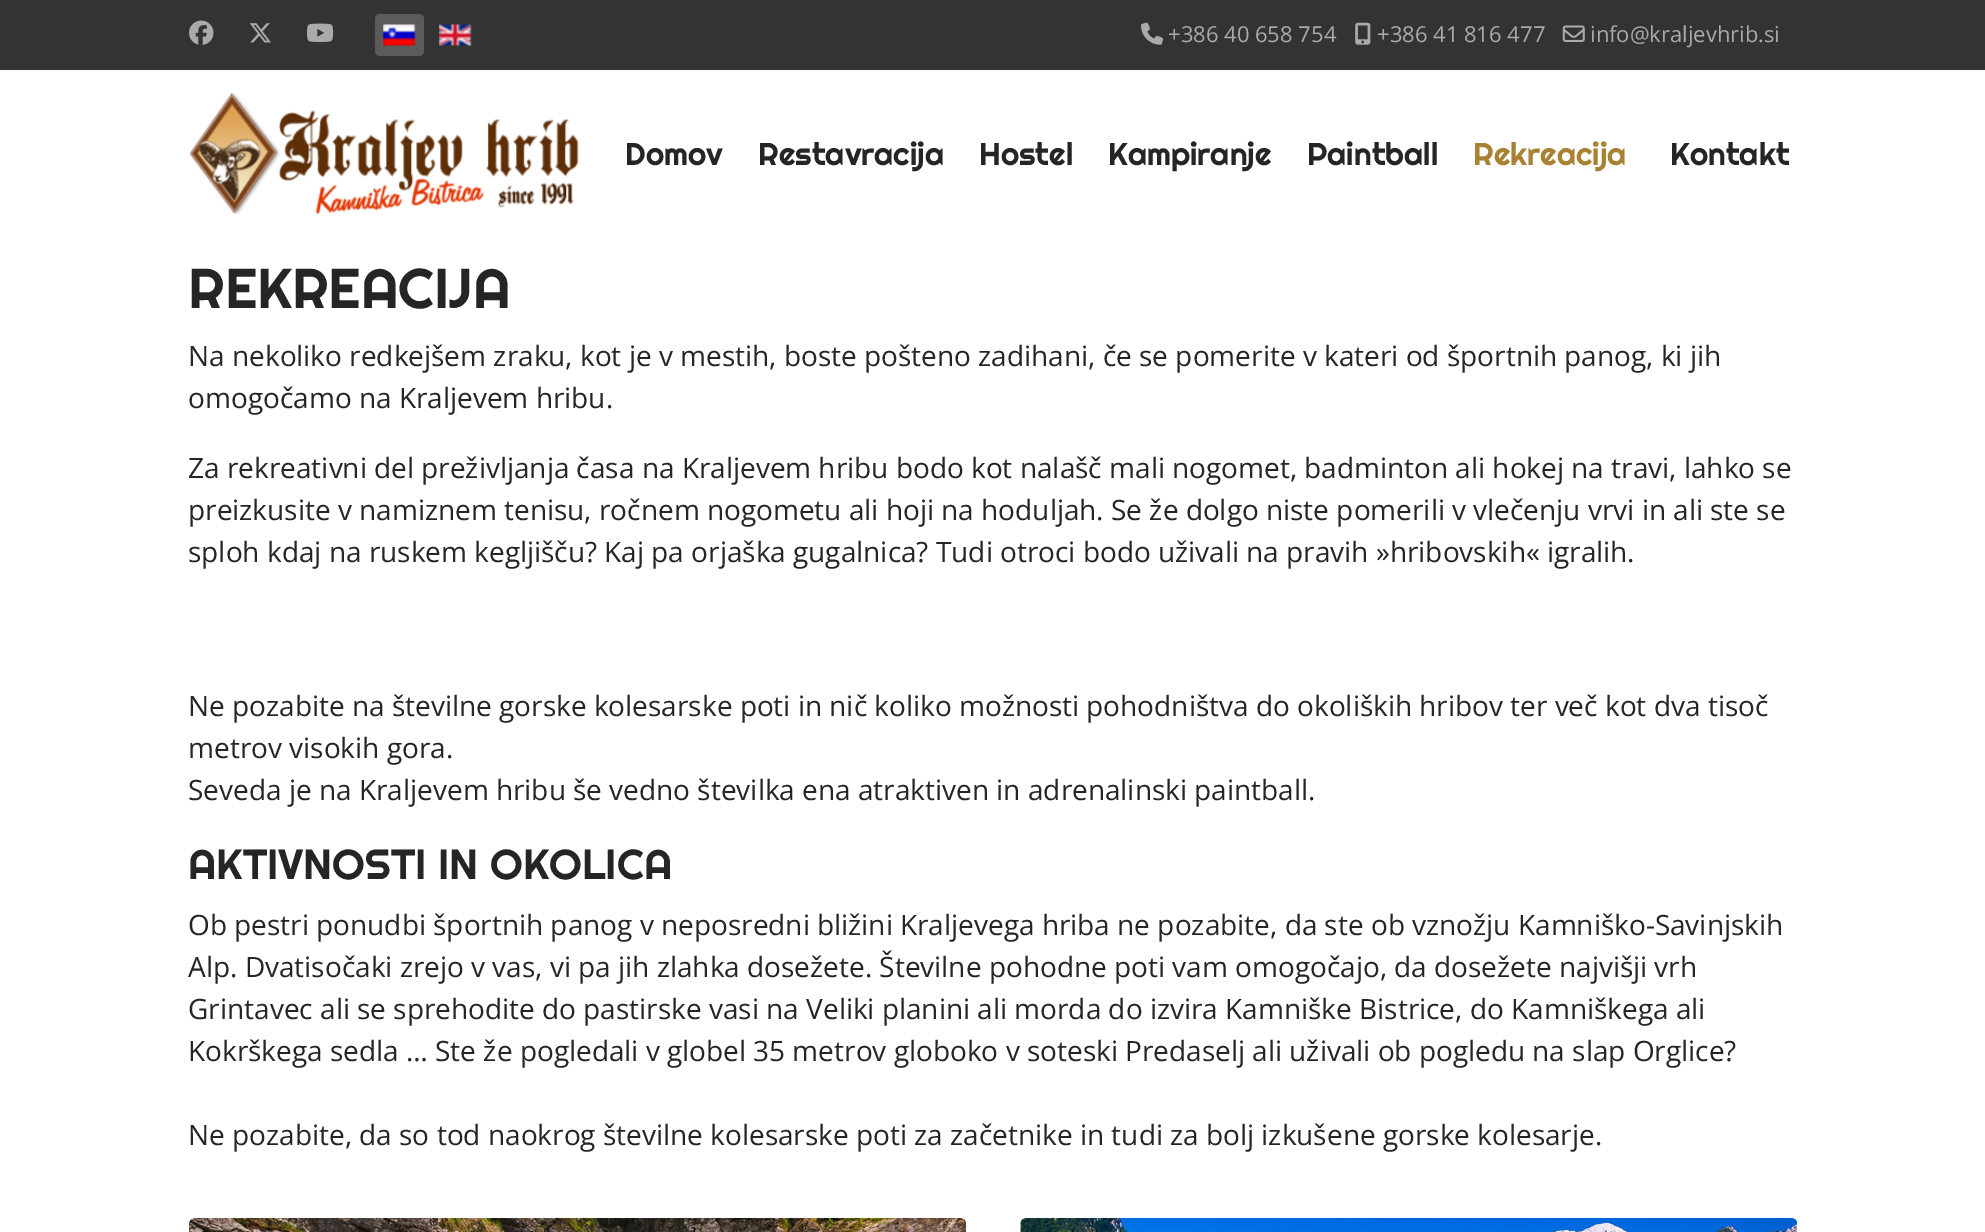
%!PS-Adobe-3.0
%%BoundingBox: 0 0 1985 1232
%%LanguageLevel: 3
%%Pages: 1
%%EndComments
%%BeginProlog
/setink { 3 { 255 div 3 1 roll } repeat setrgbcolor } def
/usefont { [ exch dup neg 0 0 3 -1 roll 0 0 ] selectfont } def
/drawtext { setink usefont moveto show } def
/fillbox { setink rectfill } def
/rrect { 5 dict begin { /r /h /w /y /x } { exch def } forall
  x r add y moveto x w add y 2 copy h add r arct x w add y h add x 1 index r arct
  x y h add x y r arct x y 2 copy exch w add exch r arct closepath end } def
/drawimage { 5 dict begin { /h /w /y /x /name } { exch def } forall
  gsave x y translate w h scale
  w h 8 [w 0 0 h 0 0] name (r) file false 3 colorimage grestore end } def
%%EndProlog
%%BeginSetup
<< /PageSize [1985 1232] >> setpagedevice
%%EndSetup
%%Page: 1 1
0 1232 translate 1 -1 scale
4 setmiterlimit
0 0 1985 1232 255 255 255 fillbox
0 0 1985 70 51 51 51 fillbox
(assets/img1.rgb) 189 20 25 25 drawimage
(assets/img2.rgb) 249 23 22 20 drawimage
(assets/img3.rgb) 307 23 27 19 drawimage
91 91 91 setink
375 14 49 42 5 rrect fill
(assets/img4.rgb) 383 24 33 22 drawimage
(assets/img5.rgb) 439 24 33 22 drawimage
(assets/img6.rgb) 1141 22 22 23 drawimage
(+386 40 658 754) 1168 42 /OpenSans-Regular 22 170 170 170 drawtext
(assets/img7.rgb) 1355 22 16 23 drawimage
(+386 41 816 477) 1377 42 /OpenSans-Regular 22 170 170 170 drawtext
(assets/img8.rgb) 1562 25 23 17 drawimage
(info@kraljevhrib.si) 1590 42 /OpenSans-Regular 22 170 170 170 drawtext
(assets/img9.rgb) 189 92 390 123 drawimage
(Domov) 625 165 /Righteous-Regular 31.5 37 37 37 drawtext
(Restavracija) 758 165 /Righteous-Regular 31.5 37 37 37 drawtext
(Hostel) 979 165 /Righteous-Regular 31.5 37 37 37 drawtext
(Kampiranje) 1108 165 /Righteous-Regular 31.5 37 37 37 drawtext
(Paintball) 1307 165 /Righteous-Regular 31.5 37 37 37 drawtext
(Rekreacija) 1473 165 /Righteous-Regular 31.5 168 129 50 drawtext
(Kontakt) 1670 165 /Righteous-Regular 31.5 37 37 37 drawtext
(REKREACIJA) 188 308 /Righteous-Regular 56 37 37 37 drawtext
(Na nekoliko redkejšem zraku, kot je v mestih, boste pošteno zadihani, če se pomerite v kateri od športnih panog, ki jih) 188 366 /OpenSans-Regular 28 37 37 37 drawtext
(omogočamo na Kraljevem hribu.) 188 408 /OpenSans-Regular 28 37 37 37 drawtext
(Za rekreativni del preživljanja časa na Kraljevem hribu bodo kot nalašč mali nogomet, badminton ali hokej na travi, lahko se) 188 478 /OpenSans-Regular 28 37 37 37 drawtext
(preizkusite v namiznem tenisu, ročnem nogometu ali hoji na hoduljah. Se že dolgo niste pomerili v vlečenju vrvi in ali ste se) 188 520 /OpenSans-Regular 28 37 37 37 drawtext
(sploh kdaj na ruskem kegljišču? Kaj pa orjaška gugalnica? Tudi otroci bodo uživali na pravih »hribovskih« igralih.) 188 562 /OpenSans-Regular 28 37 37 37 drawtext
(Ne pozabite na številne gorske kolesarske poti in nič koliko možnosti pohodništva do okoliških hribov ter več kot dva tisoč) 188 716 /OpenSans-Regular 28 37 37 37 drawtext
(metrov visokih gora.) 188 758 /OpenSans-Regular 28 37 37 37 drawtext
(Seveda je na Kraljevem hribu še vedno številka ena atraktiven in adrenalinski paintball.) 188 800 /OpenSans-Regular 28 37 37 37 drawtext
(AKTIVNOSTI IN OKOLICA) 188 879 /Righteous-Regular 42 37 37 37 drawtext
(Ob pestri ponudbi športnih panog v neposredni bližini Kraljevega hriba ne pozabite, da ste ob vznožju Kamniško-Savinjskih) 188 935 /OpenSans-Regular 28 37 37 37 drawtext
(Alp. Dvatisočaki zrejo v vas, vi pa jih zlahka dosežete. Številne pohodne poti vam omogočajo, da dosežete najvišji vrh) 188 977 /OpenSans-Regular 28 37 37 37 drawtext
(Grintavec ali se sprehodite do pastirske vasi na Veliki planini ali morda do izvira Kamniške Bistrice, do Kamniškega ali) 188 1019 /OpenSans-Regular 28 37 37 37 drawtext
(Kokrškega sedla … Ste že pogledali v globel 35 metrov globoko v soteski Predaselj ali uživali ob pogledu na slap Orglice?) 188 1061 /OpenSans-Regular 28 37 37 37 drawtext
(Ne pozabite, da so tod naokrog številne kolesarske poti za začetnike in tudi za bolj izkušene gorske kolesarje.) 188 1145 /OpenSans-Regular 28 37 37 37 drawtext
(assets/img10.rgb) 189 1218 777 14 drawimage
(assets/img11.rgb) 1020 1218 778 14 drawimage
showpage
%%EOF
